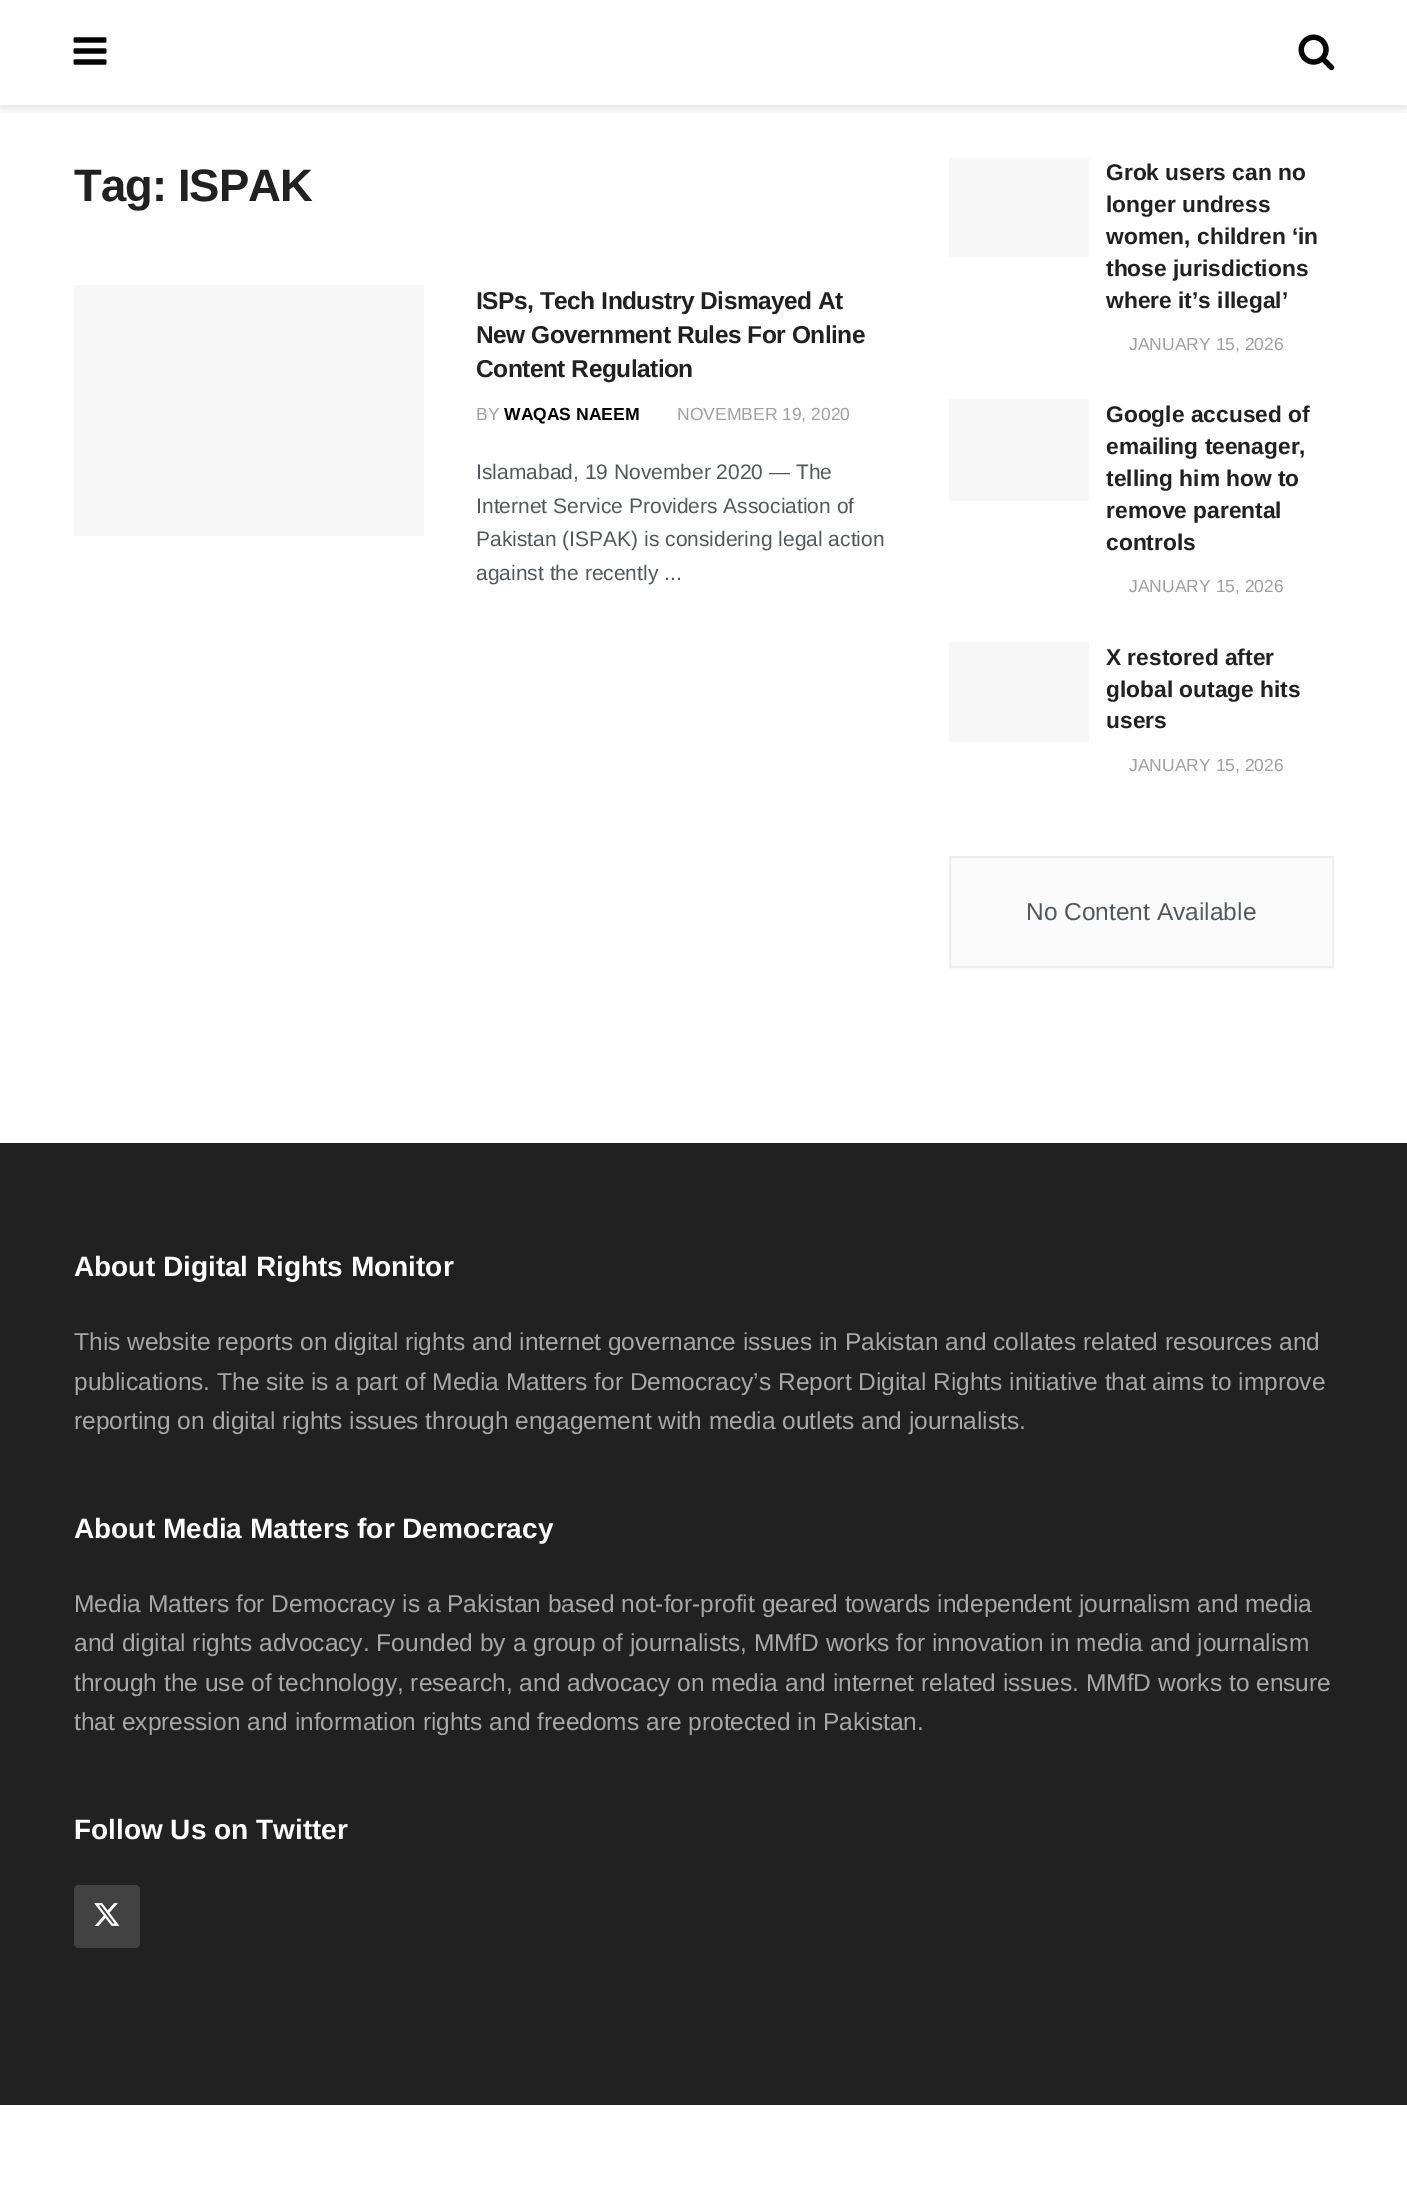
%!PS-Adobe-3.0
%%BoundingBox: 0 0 1407 2196
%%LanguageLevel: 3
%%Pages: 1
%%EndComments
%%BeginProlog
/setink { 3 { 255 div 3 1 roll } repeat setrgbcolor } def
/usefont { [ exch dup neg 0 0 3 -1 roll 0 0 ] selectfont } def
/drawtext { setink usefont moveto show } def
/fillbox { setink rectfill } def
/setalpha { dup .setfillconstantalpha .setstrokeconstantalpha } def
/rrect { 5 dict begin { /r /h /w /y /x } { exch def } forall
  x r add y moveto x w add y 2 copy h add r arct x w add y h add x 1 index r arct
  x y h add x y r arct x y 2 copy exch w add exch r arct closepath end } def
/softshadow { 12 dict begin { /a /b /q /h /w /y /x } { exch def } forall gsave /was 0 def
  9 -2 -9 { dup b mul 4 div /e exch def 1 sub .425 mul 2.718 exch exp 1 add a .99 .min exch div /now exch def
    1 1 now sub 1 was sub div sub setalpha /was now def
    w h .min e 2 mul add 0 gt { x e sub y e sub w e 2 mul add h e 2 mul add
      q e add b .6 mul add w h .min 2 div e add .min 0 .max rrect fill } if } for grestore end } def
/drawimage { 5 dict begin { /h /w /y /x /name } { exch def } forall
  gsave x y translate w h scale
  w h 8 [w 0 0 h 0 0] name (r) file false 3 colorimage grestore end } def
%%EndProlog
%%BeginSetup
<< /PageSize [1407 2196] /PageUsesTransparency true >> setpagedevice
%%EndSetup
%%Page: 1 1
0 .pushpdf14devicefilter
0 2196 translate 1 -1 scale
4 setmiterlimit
0 0 1407 2196 255 255 255 fillbox
gsave
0 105 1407 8 rectclip
0 0 0 setink
0 4 1407 105 0 5 0.1 softshadow
grestore
(assets/img1.rgb) 73 37 34 28 drawimage
(assets/img2.rgb) 1298 34 37 37 drawimage
/LiberationSans-Bold 45.5 usefont
33 33 33 setink
74 201 moveto -1 0 (Tag: ISPAK) ashow
74 285 350 251 247 247 247 fillbox
/LiberationSans-Bold 24.5 usefont
33 33 33 setink
476 309 moveto -0.5 0 (ISPs, Tech Industry Dismayed At) ashow
476 343 moveto -0.5 0 (New Government Rules For Online) ashow
476 377 moveto -0.5 0 (Content Regulation) ashow
(BY) 476 420 /LiberationSans-Regular 17.5 160 160 160 drawtext
(WAQAS NAEEM) 504 420 /LiberationSans-Bold 17.5 0 0 0 drawtext
(NOVEMBER 19, 2020) 677 420 /LiberationSans-Regular 17.5 160 160 160 drawtext
(Islamabad, 19 November 2020 — The) 476 479 /LiberationSans-Regular 21 83 88 92 drawtext
(Internet Service Providers Association of) 476 513 /LiberationSans-Regular 21 83 88 92 drawtext
(Pakistan \(ISPAK\) is considering legal action) 476 546 /LiberationSans-Regular 21 83 88 92 drawtext
(against the recently ...) 476 580 /LiberationSans-Regular 21 83 88 92 drawtext
949 158 140 99 247 247 247 fillbox
(Grok users can no) 1106 180 /LiberationSans-Bold 22.75 33 33 33 drawtext
(longer undress) 1106 212 /LiberationSans-Bold 22.75 33 33 33 drawtext
(women, children ‘in) 1106 244 /LiberationSans-Bold 22.75 33 33 33 drawtext
(those jurisdictions) 1106 276 /LiberationSans-Bold 22.75 33 33 33 drawtext
(where it’s illegal’) 1106 308 /LiberationSans-Bold 22.75 33 33 33 drawtext
(JANUARY 15, 2026) 1129 350 /LiberationSans-Regular 17.5 160 160 160 drawtext
949 399 140 102 247 247 247 fillbox
(Google accused of) 1106 422 /LiberationSans-Bold 22.75 33 33 33 drawtext
(emailing teenager,) 1106 454 /LiberationSans-Bold 22.75 33 33 33 drawtext
(telling him how to) 1106 486 /LiberationSans-Bold 22.75 33 33 33 drawtext
(remove parental) 1106 518 /LiberationSans-Bold 22.75 33 33 33 drawtext
(controls) 1106 550 /LiberationSans-Bold 22.75 33 33 33 drawtext
(JANUARY 15, 2026) 1129 592 /LiberationSans-Regular 17.5 160 160 160 drawtext
949 642 140 100 247 247 247 fillbox
(X restored after) 1106 665 /LiberationSans-Bold 22.75 33 33 33 drawtext
(global outage hits) 1106 697 /LiberationSans-Bold 22.75 33 33 33 drawtext
(users) 1106 728 /LiberationSans-Bold 22.75 33 33 33 drawtext
(JANUARY 15, 2026) 1129 771 /LiberationSans-Regular 17.5 160 160 160 drawtext
250 250 250 setink
950 857 moveto 1333 857 lineto 1333 967 lineto 950 967 lineto closepath gsave fill grestore
238 238 238 setink
2 setlinewidth
stroke
(No Content Available) 1026 920 /LiberationSans-Regular 24.5 83 88 92 drawtext
0 1143 1407 962 33 33 33 fillbox
(About Digital Rights Monitor) 74 1276 /LiberationSans-Bold 28 255 255 255 drawtext
(This website reports on digital rights and internet governance issues in Pakistan and collates related resources and) 74 1350 /LiberationSans-Regular 24.5 168 168 170 drawtext
(publications. The site is a part of Media Matters for Democracy’s Report Digital Rights initiative that aims to improve) 74 1390 /LiberationSans-Regular 24.5 168 168 170 drawtext
(reporting on digital rights issues through engagement with media outlets and journalists.) 74 1429 /LiberationSans-Regular 24.5 168 168 170 drawtext
(About Media Matters for Democracy) 74 1538 /LiberationSans-Bold 28 255 255 255 drawtext
(Media Matters for Democracy is a Pakistan based not-for-profit geared towards independent journalism and media) 74 1612 /LiberationSans-Regular 24.5 168 168 170 drawtext
(and digital rights advocacy. Founded by a group of journalists, MMfD works for innovation in media and journalism) 74 1651 /LiberationSans-Regular 24.5 168 168 170 drawtext
(through the use of technology, research, and advocacy on media and internet related issues. MMfD works to ensure) 74 1691 /LiberationSans-Regular 24.5 168 168 170 drawtext
(that expression and information rights and freedoms are protected in Pakistan.) 74 1730 /LiberationSans-Regular 24.5 168 168 170 drawtext
(Follow Us on Twitter) 74 1839 /LiberationSans-Bold 28 255 255 255 drawtext
66 66 66 setink
74 1885 66 63 5 rrect fill
(assets/img3.rgb) 94 1903 26 23 drawimage
.poppdf14devicefilter showpage
%%EOF
